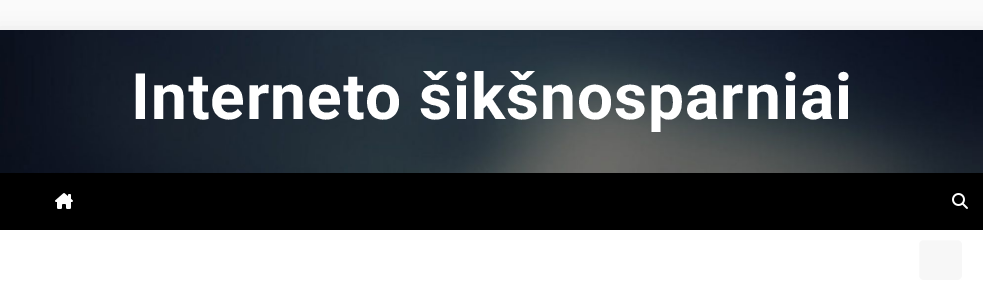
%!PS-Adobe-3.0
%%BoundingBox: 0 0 983 301
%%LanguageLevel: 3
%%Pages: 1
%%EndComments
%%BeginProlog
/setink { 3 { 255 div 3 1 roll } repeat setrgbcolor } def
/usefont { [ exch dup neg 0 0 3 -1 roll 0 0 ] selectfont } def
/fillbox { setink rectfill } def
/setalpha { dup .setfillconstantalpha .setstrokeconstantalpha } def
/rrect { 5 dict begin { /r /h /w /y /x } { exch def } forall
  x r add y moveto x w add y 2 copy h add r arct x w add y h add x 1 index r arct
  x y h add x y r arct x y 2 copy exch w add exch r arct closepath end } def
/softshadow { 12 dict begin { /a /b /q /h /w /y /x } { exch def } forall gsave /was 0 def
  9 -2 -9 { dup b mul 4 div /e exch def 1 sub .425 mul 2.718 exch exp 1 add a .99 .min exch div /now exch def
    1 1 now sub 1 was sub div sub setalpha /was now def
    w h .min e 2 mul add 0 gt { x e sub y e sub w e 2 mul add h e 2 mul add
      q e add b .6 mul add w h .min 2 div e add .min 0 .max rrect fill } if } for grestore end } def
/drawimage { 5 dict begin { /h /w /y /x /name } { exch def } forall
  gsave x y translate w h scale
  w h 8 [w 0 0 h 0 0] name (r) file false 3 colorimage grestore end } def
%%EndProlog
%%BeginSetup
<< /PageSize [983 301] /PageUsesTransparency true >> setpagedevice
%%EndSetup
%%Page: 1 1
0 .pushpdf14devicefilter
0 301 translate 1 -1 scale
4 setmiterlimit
0 0 983 301 250 250 250 fillbox
0 0 0 setink
-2 33 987 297 0 9.5 0.1 softshadow
0 230 983 71 255 255 255 fillbox
(assets/img1.rgb) 0 30 983 143 drawimage
/Roboto-Bold 64 usefont
131 119 moveto 1 0 (Interneto šikšnosparniai) ashow
0 173 983 57 0 0 0 fillbox
(assets/img2.rgb) 55 193 18 16 drawimage
(assets/img3.rgb) 952 193 16 16 drawimage
247 247 247 setink
918.5 239.5 44 41 4.5 rrect gsave fill grestore
255 255 255 setink
stroke
.poppdf14devicefilter showpage
%%EOF
